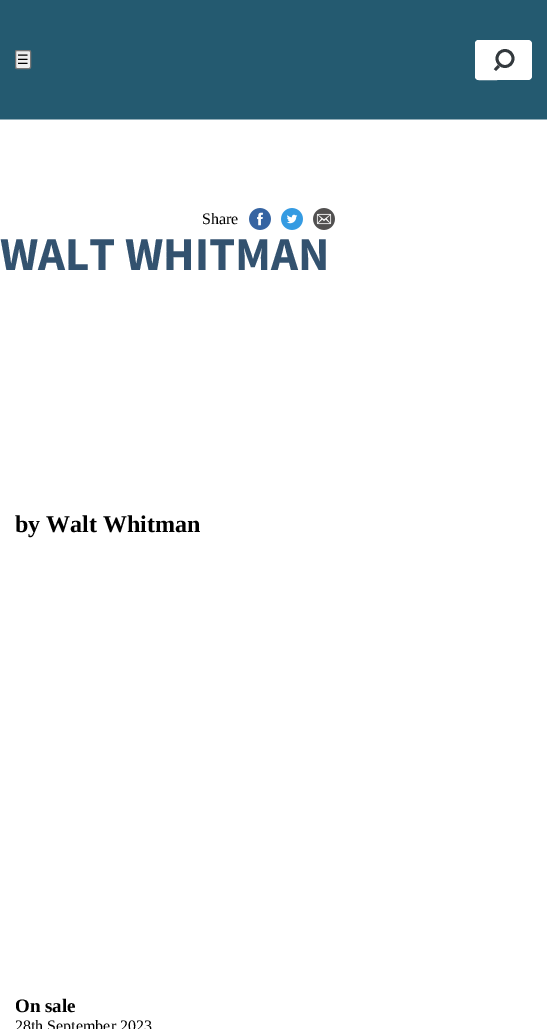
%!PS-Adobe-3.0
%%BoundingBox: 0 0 547 1029
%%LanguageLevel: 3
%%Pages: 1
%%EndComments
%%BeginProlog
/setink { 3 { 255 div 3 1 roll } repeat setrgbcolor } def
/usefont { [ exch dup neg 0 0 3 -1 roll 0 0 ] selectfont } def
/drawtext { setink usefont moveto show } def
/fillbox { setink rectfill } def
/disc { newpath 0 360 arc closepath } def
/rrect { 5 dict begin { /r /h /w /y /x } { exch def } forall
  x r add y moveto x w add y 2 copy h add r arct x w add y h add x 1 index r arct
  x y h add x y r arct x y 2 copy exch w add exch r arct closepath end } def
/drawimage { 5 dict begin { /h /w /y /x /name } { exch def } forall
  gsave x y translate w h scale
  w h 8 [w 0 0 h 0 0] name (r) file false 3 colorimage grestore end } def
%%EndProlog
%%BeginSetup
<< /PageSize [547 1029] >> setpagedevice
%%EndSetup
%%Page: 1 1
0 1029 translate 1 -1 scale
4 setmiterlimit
0 0 547 1029 255 255 255 fillbox
0 0 547 119 36 90 112 fillbox
0 119 547 1 146 173 184 fillbox
239 239 239 setink
15.5 50.5 15 18 1.5 rrect gsave fill grestore
118 118 118 setink
stroke
(☰) 17 64 /DejaVuSans-Regular 13 0 0 0 drawtext
255 255 255 setink
479 40.5 moveto 496.5 40.5 lineto 496.5 79.5 lineto 479 79.5 lineto 477 79.5 475.5 78 475.5 76 curveto 475.5 44 lineto 475.5 42 477 40.5 479 40.5 curveto closepath stroke
475 40 57 40 4 rrect fill
51 57 61 setink
2.8 setlinewidth
507.5 57 moveto 495 70 lineto stroke
255 255 255 setink
505 58.5 9.5 disc fill
51 57 61 setink
505 58.5 8 disc stroke
(Share) 202 224 /LiberationSerif-Regular 16 0 0 0 drawtext
(assets/img1.rgb) 249 208 22 22 drawimage
(assets/img2.rgb) 281 208 22 22 drawimage
(assets/img3.rgb) 313 208 22 22 drawimage
(WALT WHITMAN) 0 270 /SourceSansPro-Bold 47 51 82 111 drawtext
(by Walt Whitman) 15 532 /LiberationSerif-Bold 24 0 0 0 drawtext
(On sale) 15 1012 /LiberationSerif-Bold 19 0 0 0 drawtext
(28th September 2023) 15 1031 /LiberationSerif-Regular 16 0 0 0 drawtext
showpage
%%EOF
